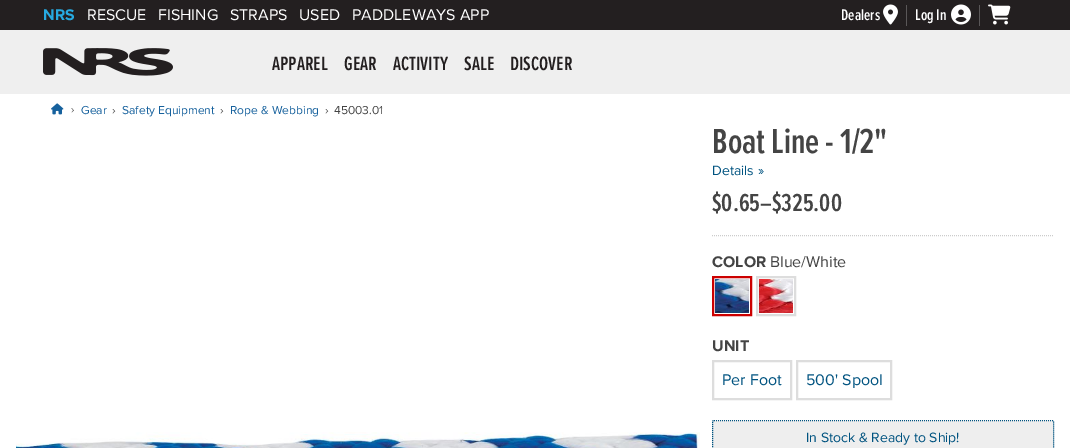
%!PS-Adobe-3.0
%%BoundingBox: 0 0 1070 448
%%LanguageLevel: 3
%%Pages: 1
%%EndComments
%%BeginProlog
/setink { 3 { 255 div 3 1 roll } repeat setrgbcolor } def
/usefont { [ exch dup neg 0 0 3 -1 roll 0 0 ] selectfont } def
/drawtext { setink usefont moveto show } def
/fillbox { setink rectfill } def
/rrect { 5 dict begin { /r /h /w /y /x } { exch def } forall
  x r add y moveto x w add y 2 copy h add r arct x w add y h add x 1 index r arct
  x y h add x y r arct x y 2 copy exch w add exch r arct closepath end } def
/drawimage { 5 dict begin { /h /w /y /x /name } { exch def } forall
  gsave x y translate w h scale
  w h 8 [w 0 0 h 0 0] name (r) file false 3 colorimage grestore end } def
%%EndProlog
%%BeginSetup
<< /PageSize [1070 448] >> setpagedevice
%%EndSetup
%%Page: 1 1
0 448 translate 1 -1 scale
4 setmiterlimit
0 0 1070 448 239 239 239 fillbox
0 0 1070 30 35 31 32 fillbox
(NRS) 43 20 /ProximaNova-Bold 16 39 170 225 drawtext
(RESCUE) 87 20 /ProximaNova-Regular 16 255 255 255 drawtext
(FISHING) 158 20 /ProximaNova-Regular 16 255 255 255 drawtext
(STRAPS) 230 20 /ProximaNova-Regular 16 255 255 255 drawtext
(USED) 299 20 /ProximaNova-Regular 16 255 255 255 drawtext
(PADDLEWAYS APP) 352 20 /ProximaNova-Regular 16 255 255 255 drawtext
(Dealers) 841 20 /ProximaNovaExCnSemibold-SemiBold 16 255 255 255 drawtext
(assets/img1.rgb) 883 4 15 21 drawimage
906 5 1 21 90 87 88 fillbox
(Log In) 915 20 /ProximaNovaExCnSemibold-SemiBold 16 255 255 255 drawtext
(assets/img2.rgb) 951 4 20 21 drawimage
979 5 1 21 90 87 88 fillbox
(assets/img3.rgb) 988 4 23 21 drawimage
(assets/img4.rgb) 43 48 130 28 drawimage
(APPAREL) 272 70 /ProximaNovaExCnSemibold-SemiBold 20 35 31 32 drawtext
(GEAR) 344 70 /ProximaNovaExCnSemibold-SemiBold 20 35 31 32 drawtext
(ACTIVITY) 393 70 /ProximaNovaExCnSemibold-SemiBold 20 35 31 32 drawtext
(SALE) 464 70 /ProximaNovaExCnSemibold-SemiBold 20 35 31 32 drawtext
(DISCOVER) 510 70 /ProximaNovaExCnSemibold-SemiBold 20 35 31 32 drawtext
0 94 1070 354 255 255 255 fillbox
(assets/img5.rgb) 51 103 13 12 drawimage
(›) 71 113 /ProximaNova-Regular 11 68 68 68 drawtext
(Gear) 81 114 /ProximaNova-Regular 12 22 97 157 drawtext
(›) 112 114 /ProximaNova-Regular 12 68 68 68 drawtext
(Safety Equipment) 122 114 /ProximaNova-Regular 12 22 97 157 drawtext
(›) 220 114 /ProximaNova-Regular 12 68 68 68 drawtext
(Rope & Webbing) 230 114 /ProximaNova-Regular 12 22 97 157 drawtext
(›) 325 114 /ProximaNova-Regular 12 68 68 68 drawtext
(45003.01) 334 114 /ProximaNova-Regular 12 68 68 68 drawtext
(Boat Line - 1/2") 712 153 /ProximaNovaExCnSemibold-SemiBold 36 68 68 68 drawtext
(Details ») 712 175 /ProximaNova-Regular 14 0 83 128 drawtext
($0.65–$325.00) 712 211 /ProximaNovaExCnSemibold-SemiBold 25.5 68 68 68 drawtext
(assets/img6.rgb) 16 432 684 16 drawimage
204 204 204 setink
[1 1] 0 setdash
712 235.5 moveto 1054 235.5 lineto stroke
(COLOR) 712 267 /ProximaNova-Bold 16 68 68 68 drawtext
(Blue/White) 770 267 /ProximaNova-Regular 16 68 68 68 drawtext
204 0 0 setink
2 setlinewidth
[] 0 setdash
713 277 38 38 rectstroke
(assets/img7.rgb) 715 279 34 34 drawimage
221 221 221 setink
757 277 38 38 rectstroke
(assets/img8.rgb) 759 279 34 34 drawimage
(UNIT) 712 351 /ProximaNova-Bold 16 68 68 68 drawtext
221 221 221 setink
713 361 78 38 rectstroke
(Per Foot) 722 385 /ProximaNova-Regular 16 0 83 128 drawtext
221 221 221 setink
797 361 94 38 rectstroke
(500' Spool) 806 385 /ProximaNova-Regular 16 0 83 128 drawtext
238 238 238 setink
712 420 342 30 2 rrect fill
0 83 128 setink
1 setlinewidth
[1 1] 0 setdash
714 420.5 moveto 1052 420.5 lineto 1053 420.5 1053.5 421 1053.5 422 curveto 1053.5 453 lineto 1053.5 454 1053 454.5 1052 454.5 curveto 714 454.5 lineto 713 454.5 712.5 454 712.5 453 curveto 712.5 422 lineto 712.5 421 713 420.5 714 420.5 curveto closepath stroke
(In Stock & Ready to Ship!) 806 442 /ProximaNova-Regular 14 0 83 128 drawtext
showpage
%%EOF
